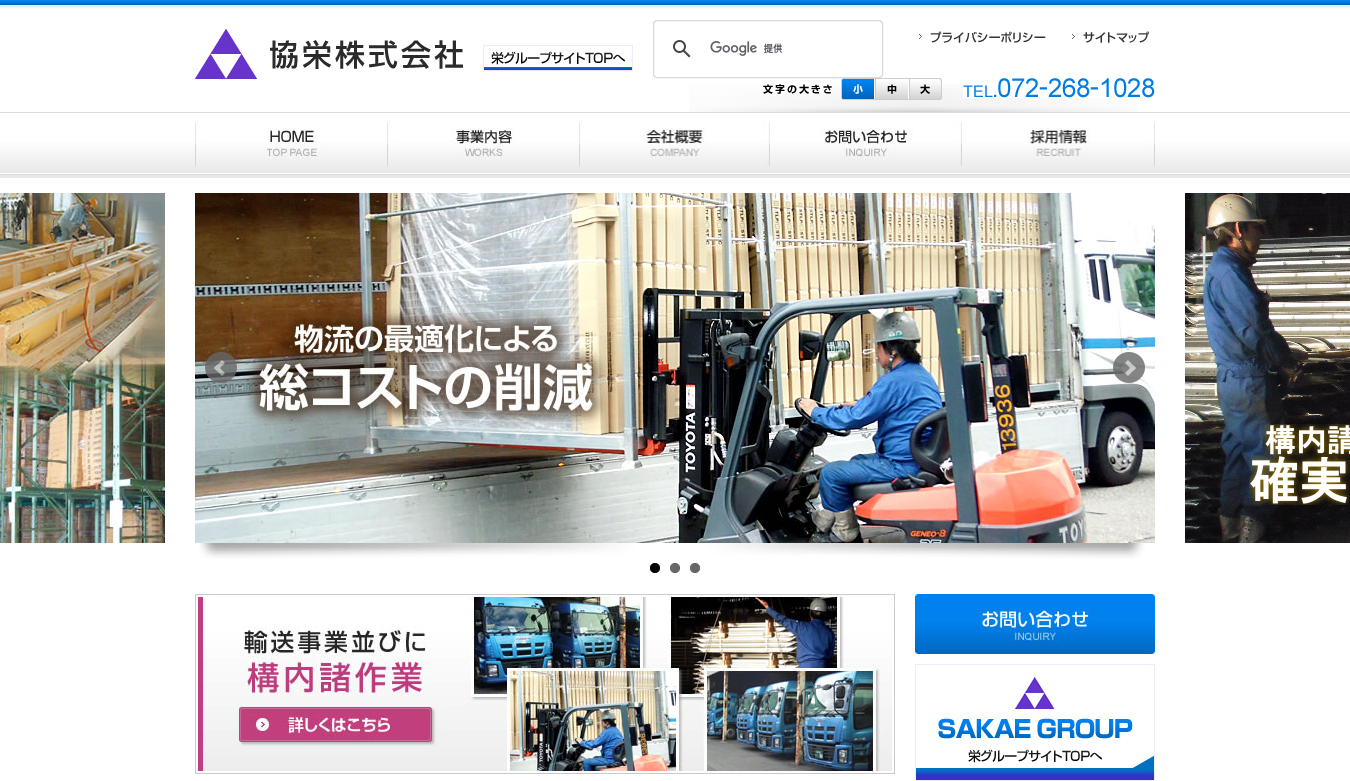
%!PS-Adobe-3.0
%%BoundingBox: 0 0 1350 781
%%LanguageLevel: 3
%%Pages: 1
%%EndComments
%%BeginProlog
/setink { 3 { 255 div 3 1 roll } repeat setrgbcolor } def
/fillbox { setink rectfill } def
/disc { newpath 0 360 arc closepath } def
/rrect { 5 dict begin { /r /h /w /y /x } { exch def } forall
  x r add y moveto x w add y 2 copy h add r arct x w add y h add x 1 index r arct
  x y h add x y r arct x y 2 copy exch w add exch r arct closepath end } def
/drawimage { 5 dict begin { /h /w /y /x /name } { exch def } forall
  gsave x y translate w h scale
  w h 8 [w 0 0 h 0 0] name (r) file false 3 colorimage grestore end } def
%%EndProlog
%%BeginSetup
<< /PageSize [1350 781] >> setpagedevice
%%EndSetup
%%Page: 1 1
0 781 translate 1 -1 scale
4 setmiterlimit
0 0 1350 781 255 255 255 fillbox
(assets/img1.rgb) 0 0 1350 9 drawimage
(assets/img2.rgb) 689 84 448 28 drawimage
(assets/img3.rgb) 195 29 268 50 drawimage
(assets/img4.rgb) 483 45 150 26 drawimage
217 217 217 setink
653.5 20.5 229 57 3.5 rrect stroke
(assets/img5.rgb) 673 40 18 18 drawimage
(assets/img6.rgb) 710 41 73 15 drawimage
(assets/img7.rgb) 919 31 127 12 drawimage
(assets/img8.rgb) 1072 31 77 12 drawimage
(assets/img9.rgb) 763 84 69 10 drawimage
(assets/img10.rgb) 841 78 34 22 drawimage
(assets/img11.rgb) 875 78 34 22 drawimage
(assets/img12.rgb) 909 78 33 22 drawimage
(assets/img13.rgb) 963 78 192 20 drawimage
(assets/img14.rgb) 0 112 1350 66 drawimage
(assets/img15.rgb) 195 120 128 48 drawimage
(assets/img16.rgb) 387 120 128 48 drawimage
(assets/img17.rgb) 579 120 191 48 drawimage
(assets/img18.rgb) 818 120 144 48 drawimage
(assets/img19.rgb) 1027 120 128 48 drawimage
(assets/img20.rgb) 199 543 946 16 drawimage
(assets/img21.rgb) 0 193 165 350 drawimage
(assets/img22.rgb) 195 193 960 350 drawimage
(assets/img23.rgb) 1185 193 165 350 drawimage
(assets/img24.rgb) 205 352 32 31 drawimage
(assets/img25.rgb) 1113 352 32 31 drawimage
0 0 0 setink
655 568 5 disc fill
102 102 102 setink
675 568 5 disc fill
695 568 5 disc fill
(assets/img26.rgb) 195 594 700 180 drawimage
(assets/img27.rgb) 915 594 240 60 drawimage
(assets/img28.rgb) 915 664 240 117 drawimage
showpage
%%EOF
